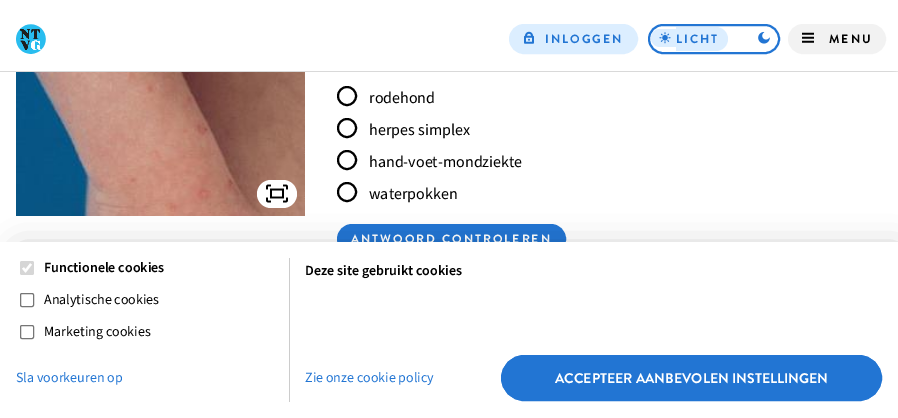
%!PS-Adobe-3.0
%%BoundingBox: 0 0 898 418
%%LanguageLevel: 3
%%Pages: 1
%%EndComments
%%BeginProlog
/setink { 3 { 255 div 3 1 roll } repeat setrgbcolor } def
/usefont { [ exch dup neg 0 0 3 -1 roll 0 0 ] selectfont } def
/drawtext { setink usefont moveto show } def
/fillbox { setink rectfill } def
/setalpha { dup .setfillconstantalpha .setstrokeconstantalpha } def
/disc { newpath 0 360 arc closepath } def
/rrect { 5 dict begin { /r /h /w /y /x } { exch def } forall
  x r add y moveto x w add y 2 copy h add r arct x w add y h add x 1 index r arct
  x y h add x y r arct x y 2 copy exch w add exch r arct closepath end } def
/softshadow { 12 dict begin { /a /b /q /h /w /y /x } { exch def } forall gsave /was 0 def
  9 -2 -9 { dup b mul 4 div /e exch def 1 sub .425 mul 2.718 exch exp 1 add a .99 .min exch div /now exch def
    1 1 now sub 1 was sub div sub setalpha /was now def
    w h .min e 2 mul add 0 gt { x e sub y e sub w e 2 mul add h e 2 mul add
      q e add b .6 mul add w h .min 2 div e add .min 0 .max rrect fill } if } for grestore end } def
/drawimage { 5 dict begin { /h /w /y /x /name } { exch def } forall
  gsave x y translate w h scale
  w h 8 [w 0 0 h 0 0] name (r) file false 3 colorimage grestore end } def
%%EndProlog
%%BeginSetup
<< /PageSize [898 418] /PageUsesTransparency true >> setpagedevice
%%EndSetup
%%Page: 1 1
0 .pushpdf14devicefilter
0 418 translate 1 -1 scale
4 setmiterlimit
0 0 898 418 255 255 255 fillbox
(assets/img1.rgb) 16 24 30 30 drawimage
220 238 255 setink
510 25 127 28 14 rrect gsave fill grestore
2 setlinewidth
stroke
(assets/img2.rgb) 524 31 10 13 drawimage
/BrandonGrotesque-Bold 12 usefont
34 117 211 setink
545 43 moveto 2 0 (INLOGGEN) ashow
649 25 130 28 14 rrect stroke
220 238 255 setink
660 29 moveto 676 29 lineto 676 47 lineto 660 47 lineto 655 47 651 43 651 38 curveto 651 33 655 29 660 29 curveto closepath fill
(assets/img3.rgb) 659 32 12 12 drawimage
676 27 moveto 716 27 lineto 722.5 27 728 32.5 728 39 curveto 728 45.5 722.5 51 716 51 curveto 676 51 lineto closepath fill
34 117 211 setink
676 43 moveto 2 0 (LICHT) ashow
(assets/img4.rgb) 758 31 12 13 drawimage
242 242 242 setink
789 25 96 28 14 rrect gsave fill grestore
stroke
(assets/img5.rgb) 802 32 12 11 drawimage
0 0 0 setink
829 43 moveto 2 0 (MENU) ashow
0 71 898 1 217 217 217 fillbox
255 255 255 setink
898 0 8 418 0 2.5 0.7 softshadow
(assets/img6.rgb) 16 72 289 144 drawimage
257 180 40 28 14 rrect fill
(assets/img7.rgb) 266 184 22 19 drawimage
0 0 0 setink
347 96 9 disc stroke
(rodehond) 369 103 /SourceSansPro-Regular 16 0 0 0 drawtext
347 128 9 disc stroke
(herpes simplex) 369 135 /SourceSansPro-Regular 16 0 0 0 drawtext
347 160 9 disc stroke
(hand-voet-mondziekte) 369 167 /SourceSansPro-Regular 16 0 0 0 drawtext
347 192 9 disc stroke
(waterpokken) 369 199 /SourceSansPro-Regular 16 0 0 0 drawtext
34 117 211 setink
338 225 227 28 14 rrect gsave fill grestore
stroke
/BrandonGrotesque-Bold 12 usefont
255 255 255 setink
351 243 moveto 2 0 (ANTWOORD CONTROLEREN) ashow
0 0 0 setink
20 252 878 156 0 17 0.3 softshadow
0 242 898 176 255 255 255 fillbox
214 214 214 setink
20 261 14 14 2 rrect fill
255 255 255 setink
2.2 setlinewidth
23 268 moveto 25.5 271 lineto 31 264 lineto stroke
(Functionele cookies) 44 272 /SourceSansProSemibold-SemiBold 14 0 0 0 drawtext
118 118 118 setink
1 setlinewidth
20.5 293.5 13 13 1.5 rrect stroke
(Analytische cookies) 44 304 /SourceSansPro-Regular 14 0 0 0 drawtext
118 118 118 setink
20.5 325.5 13 13 1.5 rrect stroke
(Marketing cookies) 44 336 /SourceSansPro-Regular 14 0 0 0 drawtext
(Sla voorkeuren op) 16 382 /SourceSansPro-Regular 14 34 117 211 drawtext
289 258 1 144 204 204 204 fillbox
(Deze site gebruikt cookies) 305 275 /SourceSansProSemibold-SemiBold 14 0 0 0 drawtext
(Zie onze cookie policy) 305 382 /SourceSansPro-Regular 14 34 117 211 drawtext
501.5 355.5 380 45 22.5 rrect gsave fill grestore
stroke
(ACCEPTEER AANBEVOLEN INSTELLINGEN) 555 383 /BrandonGrotesque-Bold 14 255 255 255 drawtext
.poppdf14devicefilter showpage
%%EOF
